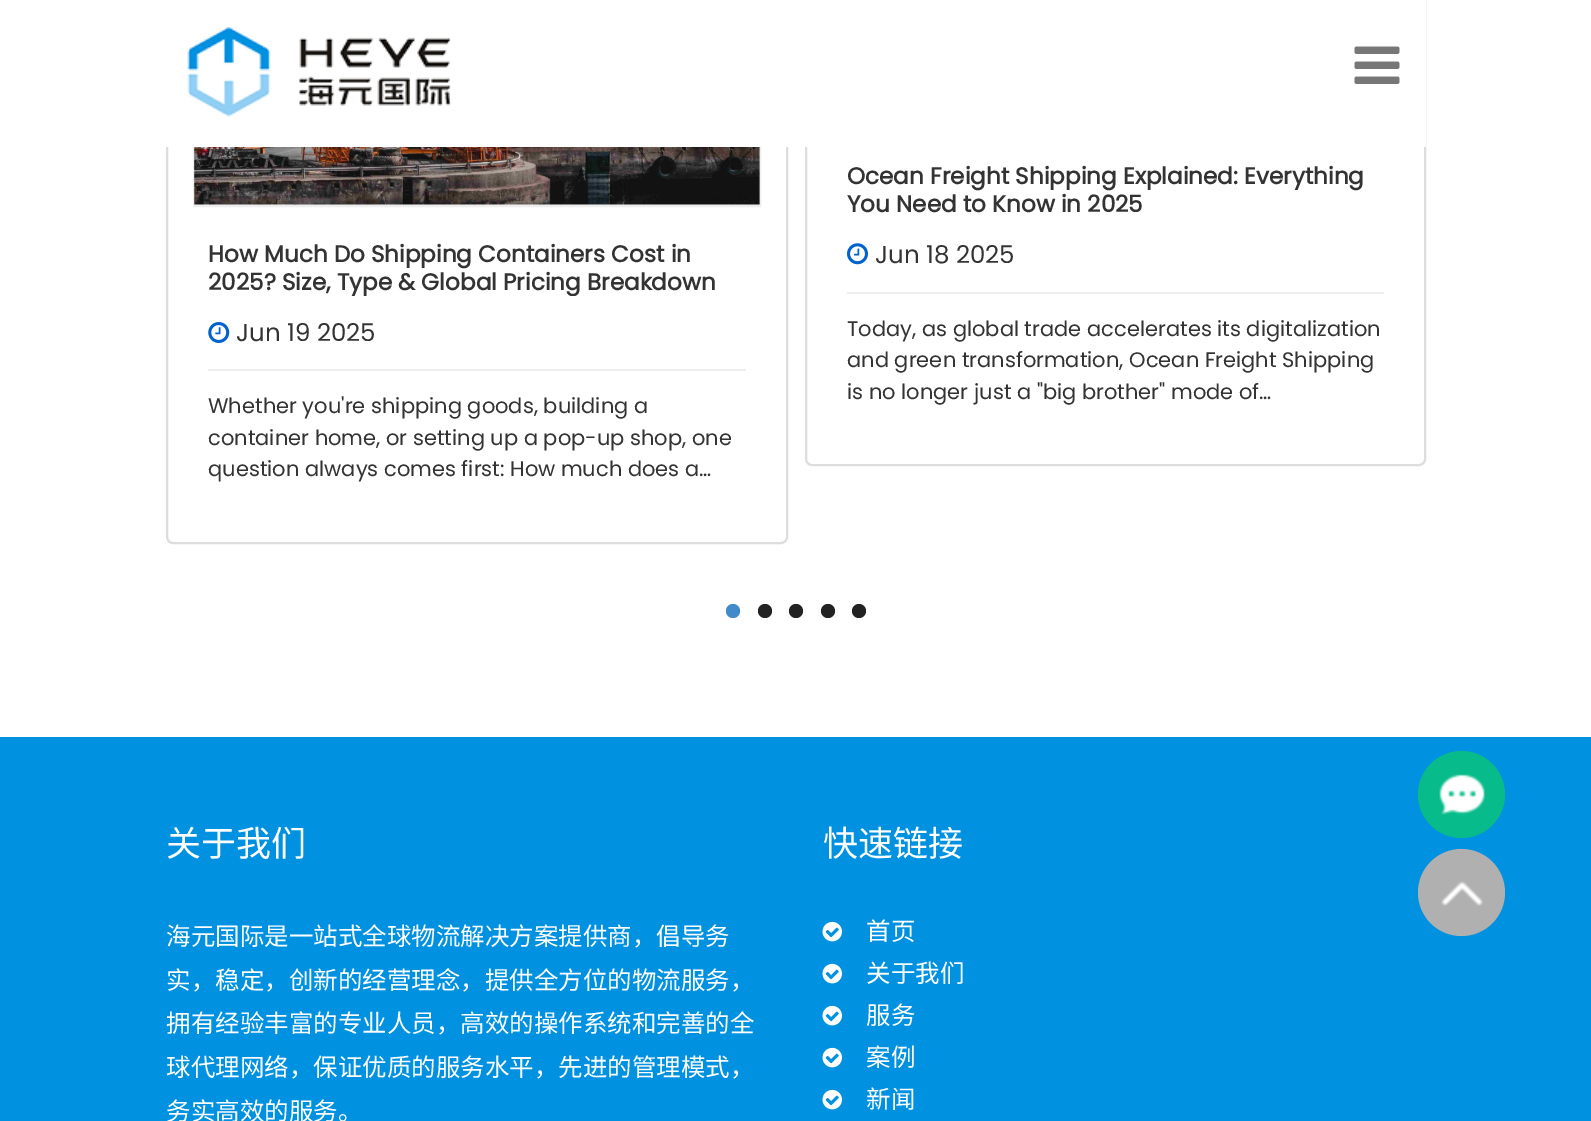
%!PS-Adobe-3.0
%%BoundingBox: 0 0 1591 1121
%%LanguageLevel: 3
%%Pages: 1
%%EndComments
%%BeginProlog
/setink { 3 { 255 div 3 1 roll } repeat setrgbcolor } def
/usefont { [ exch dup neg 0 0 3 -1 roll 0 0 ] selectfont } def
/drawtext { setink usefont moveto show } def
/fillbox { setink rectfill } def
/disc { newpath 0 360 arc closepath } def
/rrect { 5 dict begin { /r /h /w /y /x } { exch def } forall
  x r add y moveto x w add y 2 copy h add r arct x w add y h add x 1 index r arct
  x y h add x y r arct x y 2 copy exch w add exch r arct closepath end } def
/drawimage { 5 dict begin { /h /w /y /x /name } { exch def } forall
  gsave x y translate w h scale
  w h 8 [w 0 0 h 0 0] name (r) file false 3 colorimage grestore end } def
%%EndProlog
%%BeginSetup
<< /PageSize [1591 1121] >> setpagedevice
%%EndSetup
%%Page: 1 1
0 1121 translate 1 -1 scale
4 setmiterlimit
0 0 1591 1121 255 255 255 fillbox
221 221 221 setink
2 setlinewidth
167 -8 620 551 6 rrect stroke
238 238 238 setink
194 -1 566 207 rectstroke
221 221 221 setink
806 -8 619 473 6 rrect stroke
166 0 1260 147 255 255 255 fillbox
(assets/img1.rgb) 187 27 265 90 drawimage
(assets/img2.rgb) 1354 46 46 38 drawimage
(assets/img3.rgb) 194 147 566 58 drawimage
(How Much Do Shipping Containers Cost in) 208 262 /Poppins-Bold 23.1 51 51 51 drawtext
gsave
208 242 538 54 rectclip
(2025? Size, Type & Global Pricing Breakdown) 208 290 /Poppins-Bold 23.1 51 51 51 drawtext
grestore
(assets/img4.rgb) 208 322 22 21 drawimage
(Jun 19 2025) 236 341 /Poppins-Regular 24.5 51 51 51 drawtext
208 369 538 2 238 238 238 fillbox
(Whether you're shipping goods, building a) 208 413 /Poppins-Regular 21 51 51 51 drawtext
(container home, or setting up a pop-up shop, one) 208 445 /Poppins-Regular 21 51 51 51 drawtext
(question always comes first: How much does a…) 208 476 /Poppins-Regular 21 51 51 51 drawtext
(Ocean Freight Shipping Explained: Everything) 847 184 /Poppins-Bold 23.1 51 51 51 drawtext
(You Need to Know in 2025) 847 212 /Poppins-Bold 23.1 51 51 51 drawtext
(assets/img5.rgb) 847 243 21 22 drawimage
(Jun 18 2025) 875 263 /Poppins-Regular 24.5 51 51 51 drawtext
847 292 537 2 238 238 238 fillbox
(Today, as global trade accelerates its digitalization) 847 336 /Poppins-Regular 21 51 51 51 drawtext
(and green transformation, Ocean Freight Shipping) 847 367 /Poppins-Regular 21 51 51 51 drawtext
(is no longer just a "big brother" mode of…) 847 399 /Poppins-Regular 21 51 51 51 drawtext
66 139 202 setink
733 611 7 disc fill
34 34 34 setink
765 611 7 disc fill
796 611 7 disc fill
828 611 7 disc fill
859 611 7 disc fill
0 737 1591 384 0 145 224 fillbox
(关于我们) 166 856 /NotoSansCJKSC-Regular 35 255 255 255 drawtext
(海元国际是一站式全球物流解决方案提供商，倡导务) 166 945 /NotoSansCJKSC-Regular 24.5 255 255 255 drawtext
(实，稳定，创新的经营理念，提供全方位的物流服务，) 166 989 /NotoSansCJKSC-Regular 24.5 255 255 255 drawtext
(拥有经验丰富的专业人员，高效的操作系统和完善的全) 166 1032 /NotoSansCJKSC-Regular 24.5 255 255 255 drawtext
(球代理网络，保证优质的服务水平，先进的管理模式，) 166 1076 /NotoSansCJKSC-Regular 24.5 255 255 255 drawtext
(务实高效的服务。) 166 1120 /NotoSansCJKSC-Regular 24.5 255 255 255 drawtext
(快速链接) 823 856 /NotoSansCJKSC-Regular 35 255 255 255 drawtext
(assets/img6.rgb) 822 921 20 21 drawimage
(首页) 866 940 /NotoSansCJKSC-Regular 24.5 255 255 255 drawtext
(assets/img6.rgb) 822 963 20 21 drawimage
(关于我们) 866 982 /NotoSansCJKSC-Regular 24.5 255 255 255 drawtext
(assets/img6.rgb) 822 1005 20 21 drawimage
(服务) 866 1024 /NotoSansCJKSC-Regular 24.5 255 255 255 drawtext
(assets/img6.rgb) 822 1047 20 21 drawimage
(案例) 866 1066 /NotoSansCJKSC-Regular 24.5 255 255 255 drawtext
(assets/img6.rgb) 822 1089 20 21 drawimage
(新闻) 866 1108 /NotoSansCJKSC-Regular 24.5 255 255 255 drawtext
7 187 138 setink
1461.5 794.5 43.5 disc fill
(assets/img7.rgb) 1439 774 46 41 drawimage
176 176 176 setink
1461.5 892.5 43.5 disc fill
(assets/img8.rgb) 1441 881 42 25 drawimage
showpage
%%EOF
